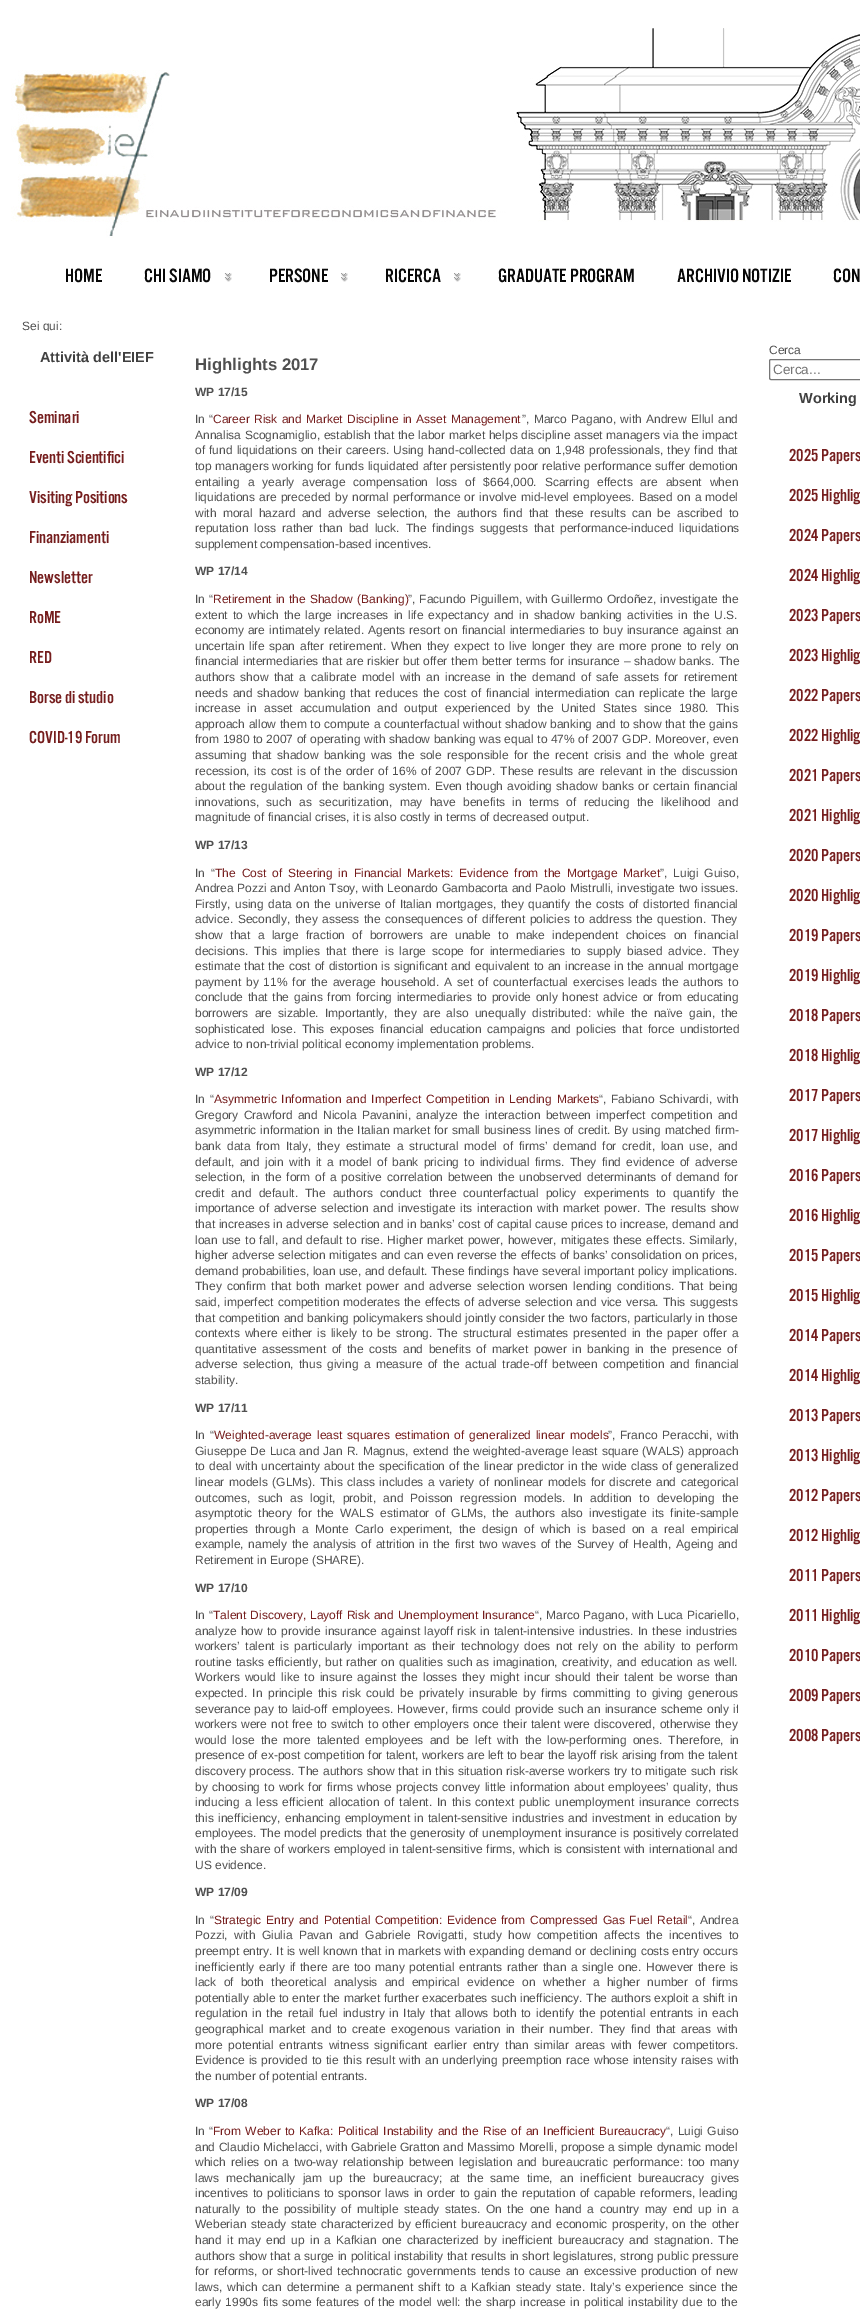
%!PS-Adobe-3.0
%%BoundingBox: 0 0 860 2312
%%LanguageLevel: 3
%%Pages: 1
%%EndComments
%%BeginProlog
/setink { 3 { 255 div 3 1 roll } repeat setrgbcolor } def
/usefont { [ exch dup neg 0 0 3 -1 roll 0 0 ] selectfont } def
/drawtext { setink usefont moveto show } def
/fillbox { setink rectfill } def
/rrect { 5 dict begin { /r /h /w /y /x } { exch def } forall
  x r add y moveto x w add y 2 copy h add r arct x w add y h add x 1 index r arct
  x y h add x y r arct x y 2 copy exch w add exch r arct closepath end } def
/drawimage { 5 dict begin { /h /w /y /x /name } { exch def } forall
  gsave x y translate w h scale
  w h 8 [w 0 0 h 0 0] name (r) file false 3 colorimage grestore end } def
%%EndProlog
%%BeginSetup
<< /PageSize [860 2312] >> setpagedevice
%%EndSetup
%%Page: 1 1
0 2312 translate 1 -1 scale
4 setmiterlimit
0 0 860 2312 255 255 255 fillbox
(assets/img1.rgb) 11 28 849 210 drawimage
(HOME) 65 282 /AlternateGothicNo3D-Medium 20 8 8 8 drawtext
(assets/img2.rgb) 224 273 8 9 drawimage
(CHI SIAMO) 144 282 /AlternateGothicNo3D-Medium 20 8 8 8 drawtext
(assets/img3.rgb) 341 273 7 9 drawimage
(PERSONE) 269 282 /AlternateGothicNo3D-Medium 20 8 8 8 drawtext
(assets/img4.rgb) 454 273 7 9 drawimage
(RICERCA) 385 282 /AlternateGothicNo3D-Medium 20 8 8 8 drawtext
(GRADUATE PROGRAM) 498 282 /AlternateGothicNo3D-Medium 20 8 8 8 drawtext
(ARCHIVIO NOTIZIE) 677 282 /AlternateGothicNo3D-Medium 20 8 8 8 drawtext
(CON) 833 282 /AlternateGothicNo3D-Medium 20 8 8 8 drawtext
gsave
2 307 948 24 rectclip
(Sei qui:) 22 330 /LiberationSans-Regular 12 80 80 80 drawtext
grestore
(Attività dell'EIEF) 40 362 /LiberationSans-Bold 14.5 64 64 64 drawtext
(Seminari) 29 423 /AlternateGothicNo3D-Medium 18 117 29 29 drawtext
(Eventi Scientifici) 29 463 /AlternateGothicNo3D-Medium 18 117 29 29 drawtext
(Visiting Positions) 29 503 /AlternateGothicNo3D-Medium 18 117 29 29 drawtext
(Finanziamenti) 29 543 /AlternateGothicNo3D-Medium 18 117 29 29 drawtext
(Newsletter) 29 583 /AlternateGothicNo3D-Medium 18 117 29 29 drawtext
(RoME) 29 623 /AlternateGothicNo3D-Medium 18 117 29 29 drawtext
(RED) 29 663 /AlternateGothicNo3D-Medium 18 117 29 29 drawtext
(Borse di studio) 29 703 /AlternateGothicNo3D-Medium 18 117 29 29 drawtext
(COVID-19 Forum) 29 743 /AlternateGothicNo3D-Medium 18 117 29 29 drawtext
(Highlights 2017) 195 370 /LiberationSans-Bold 16.75 80 80 80 drawtext
(WP 17/15) 195 396 /LiberationSans-Bold 12 80 80 80 drawtext
/LiberationSans-Regular 12 usefont
195 423 moveto 1 0 32 (In “) widthshow
117 29 29 setink
213 423 moveto 1 0 32 (Career Risk and Market Discipline in Asset Management) widthshow
80 80 80 setink
522 423 moveto 1 0 32 (”, Marco Pagano, with Andrew Ellul and) widthshow
gsave
195 343 543 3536 rectclip
195 439 moveto 0.25 0 32 (Annalisa Scognamiglio, establish that the labor market helps discipline asset managers via the impact) widthshow
195 454 moveto 0.8 0 32 (of fund liquidations on their careers. Using hand-collected data on 1,948 professionals, they find that) widthshow
grestore
195 470 moveto 0.25 0 32 (top managers working for funds liquidated after persistently poor relative performance suffer demotion) widthshow
195 486 moveto 4.6 0 32 (entailing a yearly average compensation loss of $664,000. Scarring effects are absent when) widthshow
195 501 moveto 0.9 0 32 (liquidations are preceded by normal performance or involve mid-level employees. Based on a model) widthshow
195 517 moveto 2.9 0 32 (with moral hazard and adverse selection, the authors find that these results can be ascribed to) widthshow
195 532 moveto 2.75 0 32 (reputation loss rather than bad luck. The findings suggests that performance-induced liquidations) widthshow
(supplement compensation-based incentives.) 195 548 /LiberationSans-Regular 12 80 80 80 drawtext
(WP 17/14) 195 575 /LiberationSans-Bold 12 80 80 80 drawtext
/LiberationSans-Regular 12 usefont
195 603 moveto 0.7 0 32 (In “) widthshow
117 29 29 setink
213 603 moveto 0.7 0 32 (Retirement in the Shadow \(Banking\)) widthshow
80 80 80 setink
408 603 moveto 0.7 0 32 (”, Facundo Piguillem, with Guillermo Ordoñez, investigate the) widthshow
195 619 moveto 1.75 0 32 (extent to which the large increases in life expectancy and in shadow banking activities in the U.S.) widthshow
195 634 moveto 0.75 0 32 (economy are intimately related. Agents resort on financial intermediaries to buy insurance against an) widthshow
195 650 moveto 1.4 0 32 (uncertain life span after retirement. When they expect to live longer they are more prone to rely on) widthshow
195 665 moveto 0.5 0 32 (financial intermediaries that are riskier but offer them better terms for insurance – shadow banks. The) widthshow
gsave
195 343 543 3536 rectclip
195 681 moveto 2 0 32 (authors show that a calibrate model with an increase in the demand of safe assets for retirement) widthshow
grestore
195 697 moveto 1.5 0 32 (needs and shadow banking that reduces the cost of financial intermediation can replicate the large) widthshow
195 712 moveto 3.75 0 32 (increase in asset accumulation and output experienced by the United States since 1980. This) widthshow
195 728 moveto 0.4 0 32 (approach allow them to compute a counterfactual without shadow banking and to show that the gains) widthshow
195 743 moveto 0.25 0 32 (from 1980 to 2007 of operating with shadow banking was equal to 47% of 2007 GDP. Moreover, even) widthshow
gsave
195 343 543 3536 rectclip
195 759 moveto 2 0 32 (assuming that shadow banking was the sole responsible for the recent crisis and the whole great) widthshow
grestore
195 775 moveto 1.1 0 32 (recession, its cost is of the order of 16% of 2007 GDP. These results are relevant in the discussion) widthshow
195 790 moveto 1 0 32 (about the regulation of the banking system. Even though avoiding shadow banks or certain financial) widthshow
195 806 moveto 4 0 32 (innovations, such as securitization, may have benefits in terms of reducing the likelihood and) widthshow
(magnitude of financial crises, it is also costly in terms of decreased output.) 195 821 /LiberationSans-Regular 12 80 80 80 drawtext
(WP 17/13) 195 849 /LiberationSans-Bold 12 80 80 80 drawtext
/LiberationSans-Regular 12 usefont
195 877 moveto 2.5 0 32 (In “) widthshow
117 29 29 setink
215 877 moveto 2.5 0 32 (The Cost of Steering in Financial Markets: Evidence from the Mortgage Market) widthshow
80 80 80 setink
660 877 moveto 2.5 0 32 (”, Luigi Guiso,) widthshow
195 892 moveto 0.4 0 32 (Andrea Pozzi and Anton Tsoy, with Leonardo Gambacorta and Paolo Mistrulli, investigate two issues.) widthshow
195 908 moveto 1.25 0 32 (Firstly, using data on the universe of Italian mortgages, they quantify the costs of distorted financial) widthshow
195 923 moveto 1.25 0 32 (advice. Secondly, they assess the consequences of different policies to address the question. They) widthshow
195 939 moveto 4 0 32 (show that a large fraction of borrowers are unable to make independent choices on financial) widthshow
195 955 moveto 2.5 0 32 (decisions. This implies that there is large scope for intermediaries to supply biased advice. They) widthshow
195 970 moveto 0.6 0 32 (estimate that the cost of distortion is significant and equivalent to an increase in the annual mortgage) widthshow
195 986 moveto 1.5 0 32 (payment by 11% for the average household. A set of counterfactual exercises leads the authors to) widthshow
195 1001 moveto 1.4 0 32 (conclude that the gains from forcing intermediaries to provide only honest advice or from educating) widthshow
195 1017 moveto 2.9 0 32 (borrowers are sizable. Importantly, they are also unequally distributed: while the naïve gain, the) widthshow
195 1033 moveto 2.25 0 32 (sophisticated lose. This exposes financial education campaigns and policies that force undistorted) widthshow
(advice to non-trivial political economy implementation problems.) 195 1048 /LiberationSans-Regular 12 80 80 80 drawtext
(WP 17/12) 195 1076 /LiberationSans-Bold 12 80 80 80 drawtext
/LiberationSans-Regular 12 usefont
195 1103 moveto 2 0 32 (In “) widthshow
117 29 29 setink
214 1103 moveto 1.5 0 32 (Asymmetric Information and Imperfect Competition in Lending Markets) widthshow
80 80 80 setink
599 1103 moveto 1.5 0 32 (“, Fabiano Schivardi, with) widthshow
195 1119 moveto 2 0 32 (Gregory Crawford and Nicola Pavanini, analyze the interaction between imperfect competition and) widthshow
195 1134 moveto 0.6 0 32 (asymmetric information in the Italian market for small business lines of credit. By using matched firm-) widthshow
195 1150 moveto 2.5 0 32 (bank data from Italy, they estimate a structural model of firms’ demand for credit, loan use, and) widthshow
195 1166 moveto 2 0 32 (default, and join with it a model of bank pricing to individual firms. They find evidence of adverse) widthshow
195 1181 moveto 1.5 0 32 (selection, in the form of a positive correlation between the unobserved determinants of demand for) widthshow
195 1197 moveto 3.75 0 32 (credit and default. The authors conduct three counterfactual policy experiments to quantify the) widthshow
195 1212 moveto 1.4 0 32 (importance of adverse selection and investigate its interaction with market power. The results show) widthshow
195 1228 moveto 0.2 0 32 (that increases in adverse selection and in banks’ cost of capital cause prices to increase, demand and) widthshow
195 1244 moveto 0.8 0 32 (loan use to fall, and default to rise. Higher market power, however, mitigates these effects. Similarly,) widthshow
195 1259 moveto 0.25 0 32 (higher adverse selection mitigates and can even reverse the effects of banks’ consolidation on prices,) widthshow
195 1275 moveto 0.1 0 32 (demand probabilities, loan use, and default. These findings have several important policy implications.) widthshow
195 1290 moveto 1.75 0 32 (They confirm that both market power and adverse selection worsen lending conditions. That being) widthshow
195 1306 moveto 0.75 0 32 (said, imperfect competition moderates the effects of adverse selection and vice versa. This suggests) widthshow
195 1322 moveto 0.25 0 32 (that competition and banking policymakers should jointly consider the two factors, particularly in those) widthshow
195 1337 moveto 1.6 0 32 (contexts where either is likely to be strong. The structural estimates presented in the paper offer a) widthshow
gsave
195 343 543 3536 rectclip
195 1353 moveto 2.25 0 32 (quantitative assessment of the costs and benefits of market power in banking in the presence of) widthshow
grestore
195 1368 moveto 2 0 32 (adverse selection, thus giving a measure of the actual trade-off between competition and financial) widthshow
(stability.) 195 1384 /LiberationSans-Regular 12 80 80 80 drawtext
(WP 17/11) 195 1412 /LiberationSans-Bold 12 80 80 80 drawtext
/LiberationSans-Regular 12 usefont
195 1439 moveto 1.5 0 32 (In “) widthshow
117 29 29 setink
214 1439 moveto 1.5 0 32 (Weighted-average least squares estimation of generalized linear models) widthshow
80 80 80 setink
608 1439 moveto 1.5 0 32 (”, Franco Peracchi, with) widthshow
195 1455 moveto 0.6 0 32 (Giuseppe De Luca and Jan R. Magnus, extend the weighted-average least square \(WALS\) approach) widthshow
195 1470 moveto 0.75 0 32 (to deal with uncertainty about the specification of the linear predictor in the wide class of generalized) widthshow
195 1486 moveto 1.25 0 32 (linear models \(GLMs\). This class includes a variety of nonlinear models for discrete and categorical) widthshow
195 1502 moveto 3.9 0 32 (outcomes, such as logit, probit, and Poisson regression models. In addition to developing the) widthshow
195 1517 moveto 2.6 0 32 (asymptotic theory for the WALS estimator of GLMs, the authors also investigate its finite-sample) widthshow
195 1533 moveto 3.1 0 32 (properties through a Monte Carlo experiment, the design of which is based on a real empirical) widthshow
195 1548 moveto 1.3 0 32 (example, namely the analysis of attrition in the first two waves of the Survey of Health, Ageing and) widthshow
(Retirement in Europe \(SHARE\).) 195 1564 /LiberationSans-Regular 12 80 80 80 drawtext
(WP 17/10) 195 1592 /LiberationSans-Bold 12 80 80 80 drawtext
/LiberationSans-Regular 12 usefont
195 1619 moveto 1 0 32 (In “) widthshow
117 29 29 setink
213 1619 moveto 0.5 0 32 (Talent Discovery, Layoff Risk and Unemployment Insurance) widthshow
80 80 80 setink
535 1619 moveto 0.5 0 32 (“, Marco Pagano, with Luca Picariello,) widthshow
195 1635 moveto 1 0 32 (analyze how to provide insurance against layoff risk in talent-intensive industries. In these industries) widthshow
195 1650 moveto 2.25 0 32 (workers’ talent is particularly important as their technology does not rely on the ability to perform) widthshow
195 1666 moveto 0.75 0 32 (routine tasks efficiently, but rather on qualities such as imagination, creativity, and education as well.) widthshow
195 1681 moveto 1.8 0 32 (Workers would like to insure against the losses they might incur should their talent be worse than) widthshow
195 1697 moveto 2.1 0 32 (expected. In principle this risk could be privately insurable by firms committing to giving generous) widthshow
gsave
195 343 543 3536 rectclip
195 1713 moveto 0.7 0 32 (severance pay to laid-off employees. However, firms could provide such an insurance scheme only if) widthshow
grestore
195 1728 moveto 0.75 0 32 (workers were not free to switch to other employers once their talent were discovered, otherwise they) widthshow
195 1744 moveto 2.75 0 32 (would lose the more talented employees and be left with the low-performing ones. Therefore, in) widthshow
gsave
195 343 543 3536 rectclip
(presence of ex-post competition for talent, workers are left to bear the layoff risk arising from the talent) 195 1759 /LiberationSans-Regular 12 80 80 80 drawtext
grestore
195 1775 moveto 0.4 0 32 (discovery process. The authors show that in this situation risk-averse workers try to mitigate such risk) widthshow
195 1791 moveto 1 0 32 (by choosing to work for firms whose projects convey little information about employees’ quality, thus) widthshow
195 1806 moveto 1.6 0 32 (inducing a less efficient allocation of talent. In this context public unemployment insurance corrects) widthshow
195 1822 moveto 1 0 32 (this inefficiency, enhancing employment in talent-sensitive industries and investment in education by) widthshow
195 1837 moveto 0.25 0 32 (employees. The model predicts that the generosity of unemployment insurance is positively correlated) widthshow
195 1853 moveto 0.4 0 32 (with the share of workers employed in talent-sensitive firms, which is consistent with international and) widthshow
(US evidence.) 195 1869 /LiberationSans-Regular 12 80 80 80 drawtext
(WP 17/09) 195 1896 /LiberationSans-Bold 12 80 80 80 drawtext
/LiberationSans-Regular 12 usefont
195 1924 moveto 1.4 0 32 (In “) widthshow
117 29 29 setink
214 1924 moveto 1.4 0 32 (Strategic Entry and Potential Competition: Evidence from Compressed Gas Fuel Retail) widthshow
80 80 80 setink
688 1924 moveto 1 0 32 (“, Andrea) widthshow
195 1939 moveto 3 0 32 (Pozzi, with Giulia Pavan and Gabriele Rovigatti, study how competition affects the incentives to) widthshow
195 1955 moveto 0.3 0 32 (preempt entry. It is well known that in markets with expanding demand or declining costs entry occurs) widthshow
195 1971 moveto 1.25 0 32 (inefficiently early if there are too many potential entrants rather than a single one. However there is) widthshow
195 1986 moveto 3.9 0 32 (lack of both theoretical analysis and empirical evidence on whether a higher number of firms) widthshow
195 2002 moveto 0.25 0 32 (potentially able to enter the market further exacerbates such inefficiency. The authors exploit a shift in) widthshow
195 2017 moveto 1.4 0 32 (regulation in the retail fuel industry in Italy that allows both to identify the potential entrants in each) widthshow
195 2033 moveto 2.1 0 32 (geographical market and to create exogenous variation in their number. They find that areas with) widthshow
195 2049 moveto 2.5 0 32 (more potential entrants witness significant earlier entry than similar areas with fewer competitors.) widthshow
195 2064 moveto 0.9 0 32 (Evidence is provided to tie this result with an underlying preemption race whose intensity raises with) widthshow
(the number of potential entrants.) 195 2080 /LiberationSans-Regular 12 80 80 80 drawtext
(WP 17/08) 195 2107 /LiberationSans-Bold 12 80 80 80 drawtext
/LiberationSans-Regular 12 usefont
195 2135 moveto 1 0 32 (In “) widthshow
117 29 29 setink
213 2135 moveto 1 0 32 (From Weber to Kafka: Political Instability and the Rise of an Inefficient Bureaucracy) widthshow
80 80 80 setink
666 2135 moveto 1 0 32 (“, Luigi Guiso) widthshow
195 2151 moveto 0.3 0 32 (and Claudio Michelacci, with Gabriele Gratton and Massimo Morelli, propose a simple dynamic model) widthshow
195 2166 moveto 1.5 0 32 (which relies on a two-way relationship between legislation and bureaucratic performance: too many) widthshow
195 2182 moveto 3.75 0 32 (laws mechanically jam up the bureaucracy; at the same time, an inefficient bureaucracy gives) widthshow
195 2197 moveto 1 0 32 (incentives to politicians to sponsor laws in order to gain the reputation of capable reformers, leading) widthshow
195 2213 moveto 2.25 0 32 (naturally to the possibility of multiple steady states. On the one hand a country may end up in a) widthshow
195 2228 moveto 1.2 0 32 (Weberian steady state characterized by efficient bureaucracy and economic prosperity, on the other) widthshow
195 2244 moveto 1.9 0 32 (hand it may end up in a Kafkian one characterized by inefficient bureaucracy and stagnation. The) widthshow
195 2260 moveto 0.25 0 32 (authors show that a surge in political instability that results in short legislatures, strong public pressure) widthshow
195 2275 moveto 1.25 0 32 (for reforms, or short-lived technocratic governments tends to cause an excessive production of new) widthshow
195 2291 moveto 1.4 0 32 (laws, which can determine a permanent shift to a Kafkian steady state. Italy’s experience since the) widthshow
195 2306 moveto 1.1 0 32 (early 1990s fits some features of the model well: the sharp increase in political instability due to the) widthshow
(Cerca) 769 354 /LiberationSans-Regular 12 80 80 80 drawtext
118 118 118 setink
769.5 359.5 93 20 1.5 rrect stroke
(Cerca...) 773 374 /LiberationSans-Regular 13.5 117 117 117 drawtext
(Working) 799 403 /LiberationSans-Bold 14.5 64 64 64 drawtext
(2025 Papers) 789 461 /AlternateGothicNo3D-Medium 18 117 29 29 drawtext
(2025 Highlig) 789 501 /AlternateGothicNo3D-Medium 18 117 29 29 drawtext
(2024 Papers) 789 541 /AlternateGothicNo3D-Medium 18 117 29 29 drawtext
(2024 Highlig) 789 581 /AlternateGothicNo3D-Medium 18 117 29 29 drawtext
(2023 Papers) 789 621 /AlternateGothicNo3D-Medium 18 117 29 29 drawtext
(2023 Highlig) 789 661 /AlternateGothicNo3D-Medium 18 117 29 29 drawtext
(2022 Papers) 789 701 /AlternateGothicNo3D-Medium 18 117 29 29 drawtext
(2022 Highlig) 789 741 /AlternateGothicNo3D-Medium 18 117 29 29 drawtext
(2021 Papers) 789 781 /AlternateGothicNo3D-Medium 18 117 29 29 drawtext
(2021 Highlig) 789 821 /AlternateGothicNo3D-Medium 18 117 29 29 drawtext
(2020 Papers) 789 861 /AlternateGothicNo3D-Medium 18 117 29 29 drawtext
(2020 Highlig) 789 901 /AlternateGothicNo3D-Medium 18 117 29 29 drawtext
(2019 Papers) 789 941 /AlternateGothicNo3D-Medium 18 117 29 29 drawtext
(2019 Highlig) 789 981 /AlternateGothicNo3D-Medium 18 117 29 29 drawtext
(2018 Papers) 789 1021 /AlternateGothicNo3D-Medium 18 117 29 29 drawtext
(2018 Highlig) 789 1061 /AlternateGothicNo3D-Medium 18 117 29 29 drawtext
(2017 Papers) 789 1101 /AlternateGothicNo3D-Medium 18 117 29 29 drawtext
(2017 Highlig) 789 1141 /AlternateGothicNo3D-Medium 18 117 29 29 drawtext
(2016 Papers) 789 1181 /AlternateGothicNo3D-Medium 18 117 29 29 drawtext
(2016 Highlig) 789 1221 /AlternateGothicNo3D-Medium 18 117 29 29 drawtext
(2015 Papers) 789 1261 /AlternateGothicNo3D-Medium 18 117 29 29 drawtext
(2015 Highlig) 789 1301 /AlternateGothicNo3D-Medium 18 117 29 29 drawtext
(2014 Papers) 789 1341 /AlternateGothicNo3D-Medium 18 117 29 29 drawtext
(2014 Highlig) 789 1381 /AlternateGothicNo3D-Medium 18 117 29 29 drawtext
(2013 Papers) 789 1421 /AlternateGothicNo3D-Medium 18 117 29 29 drawtext
(2013 Highlig) 789 1461 /AlternateGothicNo3D-Medium 18 117 29 29 drawtext
(2012 Papers) 789 1501 /AlternateGothicNo3D-Medium 18 117 29 29 drawtext
(2012 Highlig) 789 1541 /AlternateGothicNo3D-Medium 18 117 29 29 drawtext
(2011 Papers) 789 1581 /AlternateGothicNo3D-Medium 18 117 29 29 drawtext
(2011 Highlig) 789 1621 /AlternateGothicNo3D-Medium 18 117 29 29 drawtext
(2010 Papers) 789 1661 /AlternateGothicNo3D-Medium 18 117 29 29 drawtext
(2009 Papers) 789 1701 /AlternateGothicNo3D-Medium 18 117 29 29 drawtext
(2008 Papers) 789 1741 /AlternateGothicNo3D-Medium 18 117 29 29 drawtext
showpage
%%EOF
